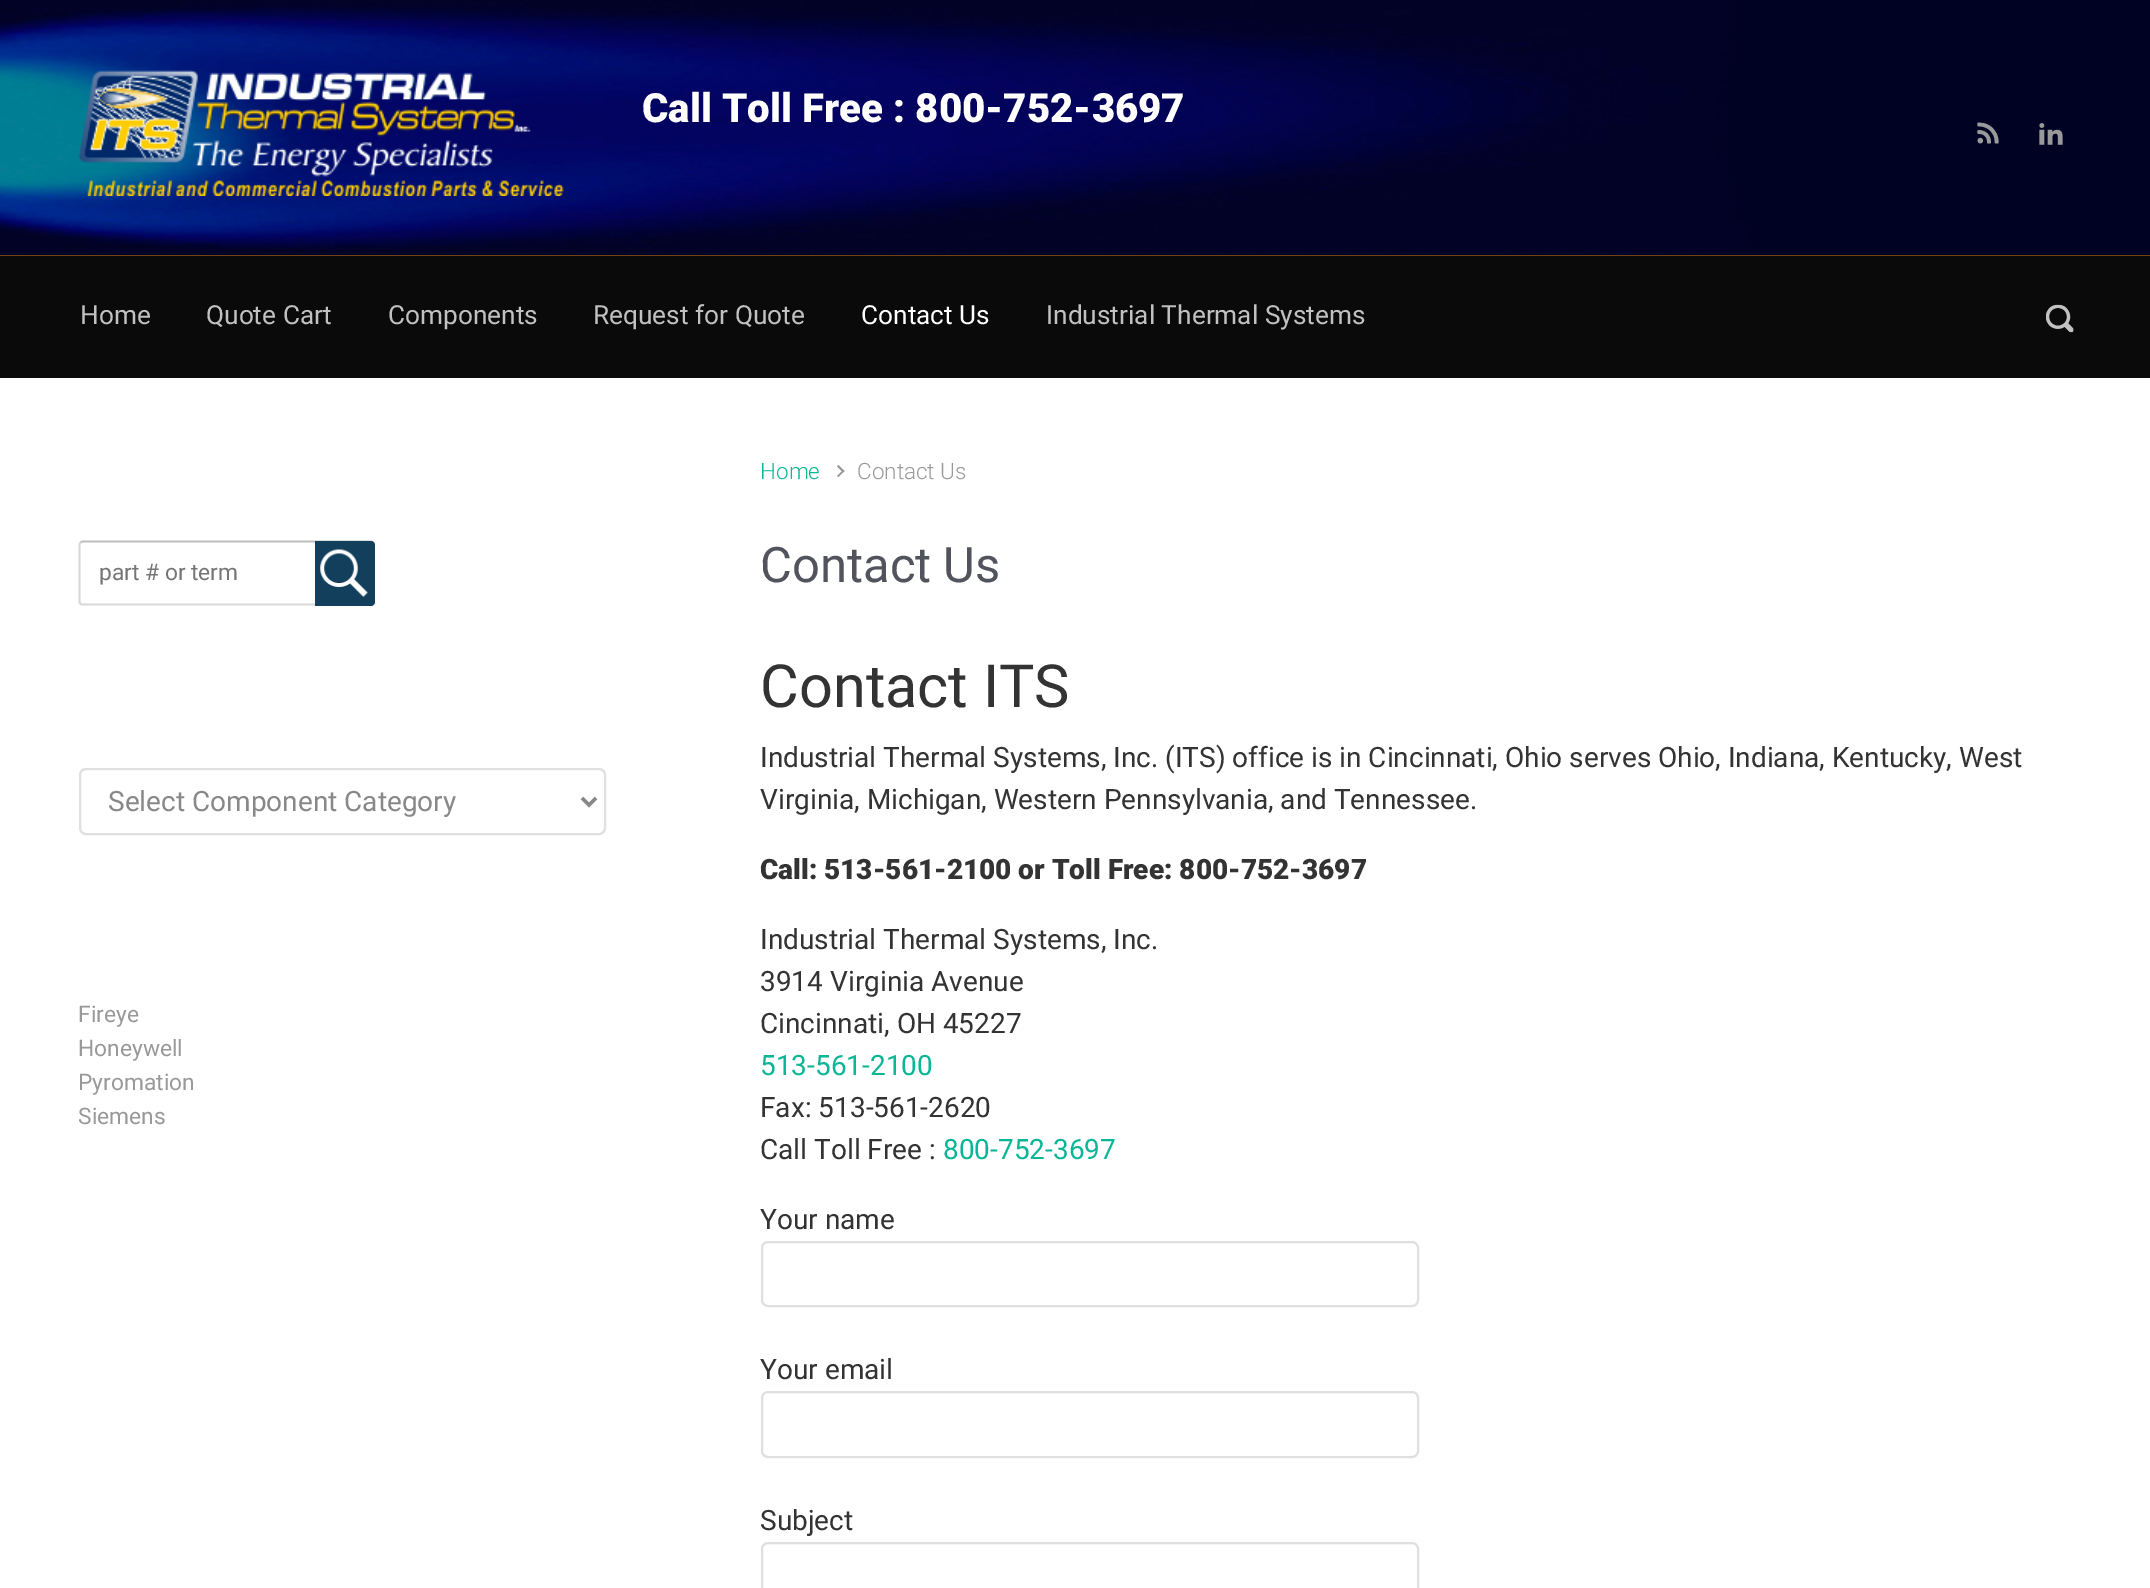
%!PS-Adobe-3.0
%%BoundingBox: 0 0 2150 1588
%%LanguageLevel: 3
%%Pages: 1
%%EndComments
%%BeginProlog
/setink { 3 { 255 div 3 1 roll } repeat setrgbcolor } def
/usefont { [ exch dup neg 0 0 3 -1 roll 0 0 ] selectfont } def
/drawtext { setink usefont moveto show } def
/fillbox { setink rectfill } def
/rrect { 5 dict begin { /r /h /w /y /x } { exch def } forall
  x r add y moveto x w add y 2 copy h add r arct x w add y h add x 1 index r arct
  x y h add x y r arct x y 2 copy exch w add exch r arct closepath end } def
/drawimage { 5 dict begin { /h /w /y /x /name } { exch def } forall
  gsave x y translate w h scale
  w h 8 [w 0 0 h 0 0] name (r) file false 3 colorimage grestore end } def
%%EndProlog
%%BeginSetup
<< /PageSize [2150 1588] >> setpagedevice
%%EndSetup
%%Page: 1 1
0 1588 translate 1 -1 scale
4 setmiterlimit
0 0 2150 1588 221 133 2 fillbox
(assets/img1.rgb) 0 0 2150 256 drawimage
(assets/img2.rgb) 78 70 486 126 drawimage
(Call Toll Free : 800-752-3697) 642 122 /Roboto-Black 40.25 255 255 255 drawtext
(assets/img3.rgb) 1977 122 22 22 drawimage
(assets/img4.rgb) 2039 123 24 22 drawimage
0 256 2150 122 10 10 10 fillbox
(Home) 80 324 /Roboto-Regular 26.25 193 193 193 drawtext
(Quote Cart) 206 324 /Roboto-Regular 26.25 193 193 193 drawtext
(Components) 388 324 /Roboto-Regular 26.25 193 193 193 drawtext
(Request for Quote) 593 324 /Roboto-Regular 26.25 193 193 193 drawtext
(Contact Us) 861 324 /Roboto-Regular 26.25 255 255 255 drawtext
(Industrial Thermal Systems) 1046 324 /Roboto-Regular 26.25 193 193 193 drawtext
(assets/img5.rgb) 2046 304 28 29 drawimage
0 378 2150 1210 255 255 255 fillbox
192 192 192 setink
1.8 setlinewidth
80.5 542.5 moveto 82 541.5 lineto 371 541.5 lineto 373 542.5 lineto stroke
217 217 217 setink
373 542.5 moveto 373.5 544 lineto 373.5 602 lineto 373 604 lineto 371 604.5 lineto 82 604.5 lineto 80.5 604 lineto 79.5 602 lineto 79.5 544 lineto 80.5 542.5 lineto stroke
(part # or term) 99 580 /Roboto-Regular 22.75 117 117 117 drawtext
18 63 92 setink
315 541 moveto 371 541 lineto 373 541 375 543 375 545 curveto 375 602 lineto 375 604 373 606 371 606 curveto 315 606 lineto closepath fill
(assets/img6.rgb) 320 549 48 48 drawimage
224 224 224 setink
2 setlinewidth
80 769 525 65 6 rrect stroke
136 136 136 setink
3.5 setlinewidth
582 798 moveto 589 805 lineto 596 798 lineto stroke
(Select Component Category) 108 811 /Roboto-Regular 28 136 136 136 drawtext
(Fireye) 78 1022 /Roboto-Regular 22.75 153 153 153 drawtext
(Honeywell) 78 1056 /Roboto-Regular 22.75 153 153 153 drawtext
(Pyromation) 78 1090 /Roboto-Regular 22.75 153 153 153 drawtext
(Siemens) 78 1124 /Roboto-Regular 22.75 153 153 153 drawtext
(Home) 760 479 /Roboto-Light 22.5 11 182 151 drawtext
153 153 153 setink
837 466.5 moveto 838.5 465 lineto 844.5 471 lineto 843 472.5 lineto closepath fill
837 476 moveto 843 470 lineto 844.5 471 lineto 838.5 477 lineto closepath fill
(Contact Us) 857 479 /Roboto-Light 22.5 153 153 153 drawtext
(Contact Us) 760 582 /Roboto-Regular 49 81 84 92 drawtext
(Contact ITS) 760 707 /Roboto-Regular 59.5 51 51 51 drawtext
(Industrial Thermal Systems, Inc. \(ITS\) office is in Cincinnati, Ohio serves Ohio, Indiana, Kentucky, West) 760 767 /Roboto-Regular 28 51 51 51 drawtext
(Virginia, Michigan, Western Pennsylvania, and Tennessee.) 760 809 /Roboto-Regular 28 51 51 51 drawtext
(Call: 513-561-2100 or Toll Free: 800-752-3697) 760 879 /Roboto-Black 28 51 51 51 drawtext
(Industrial Thermal Systems, Inc.) 760 949 /Roboto-Regular 28 51 51 51 drawtext
(3914 Virginia Avenue) 760 991 /Roboto-Regular 28 51 51 51 drawtext
(Cincinnati, OH 45227) 760 1033 /Roboto-Regular 28 51 51 51 drawtext
(513-561-2100) 760 1075 /Roboto-Regular 28 11 182 151 drawtext
(Fax: 513-561-2620) 760 1117 /Roboto-Regular 28 51 51 51 drawtext
(Call Toll Free :) 760 1159 /Roboto-Regular 28 51 51 51 drawtext
(800-752-3697) 943 1159 /Roboto-Regular 28 11 182 151 drawtext
(Your name) 760 1229 /Roboto-Regular 28 51 51 51 drawtext
224 224 224 setink
2 setlinewidth
762 1242 656 64 6 rrect stroke
(Your email) 760 1379 /Roboto-Regular 28 51 51 51 drawtext
224 224 224 setink
762 1392 656 65 6 rrect stroke
(Subject) 760 1530 /Roboto-Regular 28 51 51 51 drawtext
224 224 224 setink
762 1543 656 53 6 rrect stroke
showpage
%%EOF
